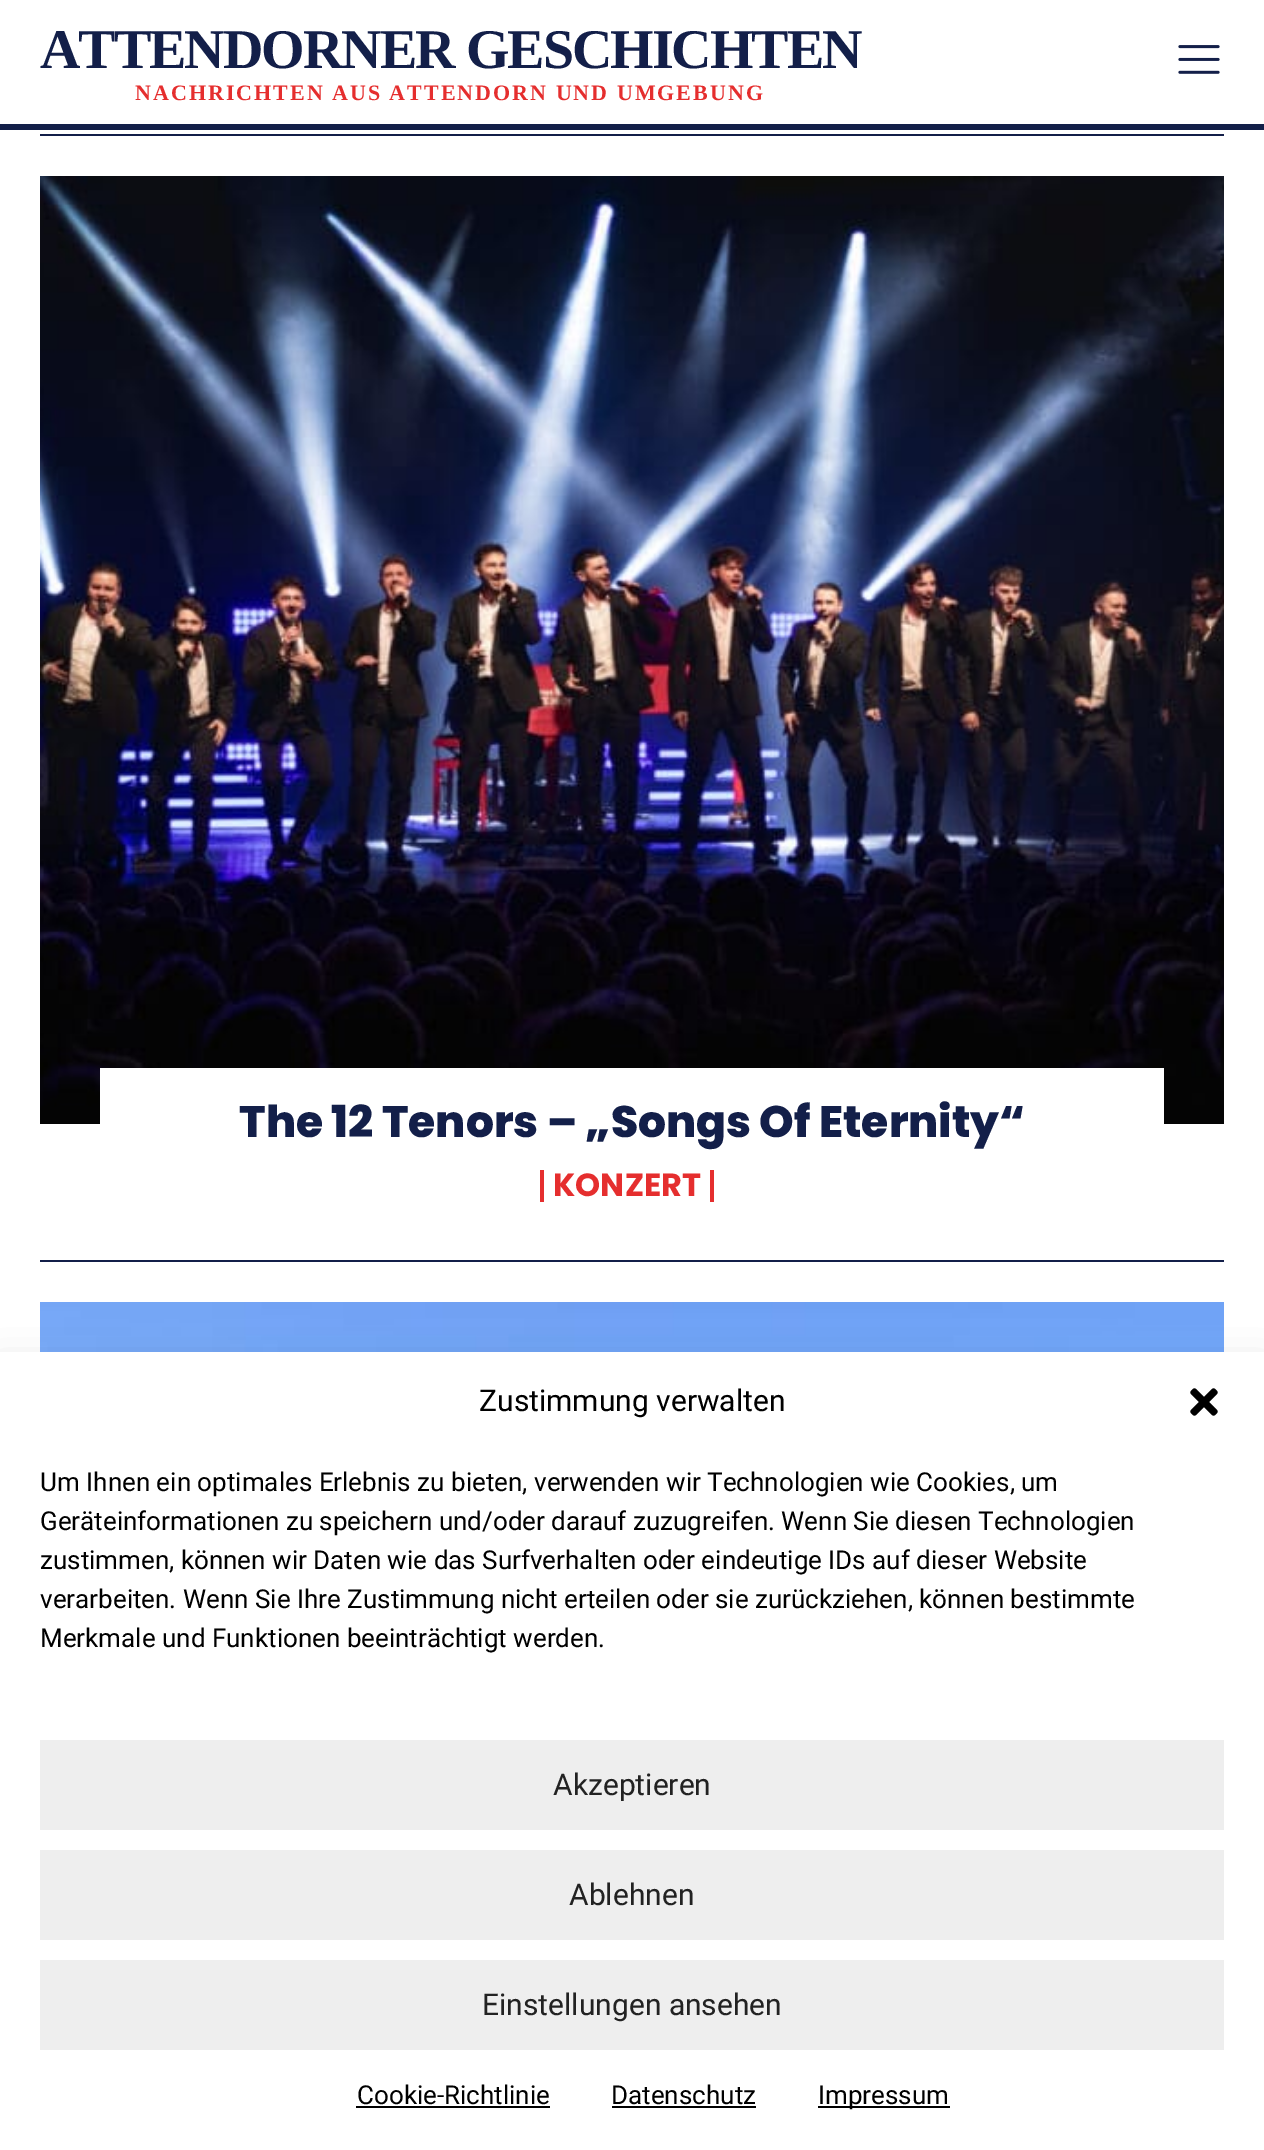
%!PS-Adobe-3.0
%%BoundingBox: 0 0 1264 2150
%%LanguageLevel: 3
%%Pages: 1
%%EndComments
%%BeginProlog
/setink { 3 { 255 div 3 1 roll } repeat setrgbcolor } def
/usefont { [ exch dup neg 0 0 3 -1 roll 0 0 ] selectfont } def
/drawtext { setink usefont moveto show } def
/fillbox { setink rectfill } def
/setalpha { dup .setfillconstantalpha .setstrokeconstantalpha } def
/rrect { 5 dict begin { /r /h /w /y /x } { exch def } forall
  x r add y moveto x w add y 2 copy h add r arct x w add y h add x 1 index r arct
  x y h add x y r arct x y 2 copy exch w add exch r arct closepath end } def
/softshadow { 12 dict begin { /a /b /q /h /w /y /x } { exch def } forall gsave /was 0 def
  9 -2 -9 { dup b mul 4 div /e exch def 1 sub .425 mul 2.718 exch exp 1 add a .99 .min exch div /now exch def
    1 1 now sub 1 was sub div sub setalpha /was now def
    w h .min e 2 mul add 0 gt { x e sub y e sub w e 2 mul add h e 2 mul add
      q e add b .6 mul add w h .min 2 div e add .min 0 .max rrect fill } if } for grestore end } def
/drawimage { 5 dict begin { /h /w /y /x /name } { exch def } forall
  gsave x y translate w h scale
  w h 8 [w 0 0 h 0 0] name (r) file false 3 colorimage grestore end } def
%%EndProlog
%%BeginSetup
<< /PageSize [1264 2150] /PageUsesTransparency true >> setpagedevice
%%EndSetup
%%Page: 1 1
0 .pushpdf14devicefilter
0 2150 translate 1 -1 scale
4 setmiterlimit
0 0 1264 2150 255 255 255 fillbox
0 124 1264 6 19 31 73 fillbox
/LiberationSerif-Bold 56 usefont
40 68 moveto -2 0 (ATTENDORNER GESCHICHTEN) ashow
/LiberationSerif-Bold 22 usefont
229 46 46 setink
135 100 moveto 2 0 (NACHRICHTEN AUS ATTENDORN UND UMGEBUNG) ashow
(assets/img1.rgb) 1178 45 42 29 drawimage
40 134 1184 2 19 31 73 fillbox
(assets/img2.rgb) 40 176 1184 948 drawimage
100 1068 1064 56 255 255 255 fillbox
(The 12 Tenors – „Songs Of Eternity“) 239 1137 /Poppins-ExtraBold 44 19 31 73 drawtext
710 1170 4 32 229 46 46 fillbox
540 1170 4 32 229 46 46 fillbox
(KONZERT) 553 1196 /Poppins-Bold 32 229 46 46 drawtext
40 1260 1184 2 19 31 73 fillbox
(assets/img3.rgb) 40 1302 1184 50 drawimage
0 0 0 setink
0 1372 1264 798 0 20 0.19 softshadow
0 1352 1264 798 255 255 255 fillbox
(Zustimmung verwalten) 479 1411 /Roboto-Regular 30 0 0 0 drawtext
(assets/img4.rgb) 1190 1388 28 28 drawimage
(Um Ihnen ein optimales Erlebnis zu bieten, verwenden wir Technologien wie Cookies, um) 40 1491 /Roboto-Regular 26 0 0 0 drawtext
(Geräteinformationen zu speichern und/oder darauf zuzugreifen. Wenn Sie diesen Technologien) 40 1530 /Roboto-Regular 26 0 0 0 drawtext
(zustimmen, können wir Daten wie das Surfverhalten oder eindeutige IDs auf dieser Website) 40 1569 /Roboto-Regular 26 0 0 0 drawtext
(verarbeiten. Wenn Sie Ihre Zustimmung nicht erteilen oder sie zurückziehen, können bestimmte) 40 1608 /Roboto-Regular 26 0 0 0 drawtext
(Merkmale und Funktionen beeinträchtigt werden.) 40 1647 /Roboto-Regular 26 0 0 0 drawtext
40 1740 1184 90 238 238 238 fillbox
(Akzeptieren) 553 1795 /Roboto-Regular 30 34 34 34 drawtext
40 1850 1184 90 238 238 238 fillbox
(Ablehnen) 569 1905 /Roboto-Regular 30 34 34 34 drawtext
40 1960 1184 90 238 238 238 fillbox
(Einstellungen ansehen) 482 2015 /Roboto-Regular 30 34 34 34 drawtext
(Cookie-Richtlinie) 357 2104 /Roboto-Regular 26 0 0 0 drawtext
356 2106 194 2 0 0 0 fillbox
(Datenschutz) 611 2104 /Roboto-Regular 26 0 0 0 drawtext
612 2106 144 2 0 0 0 fillbox
818 2106 132 2 0 0 0 fillbox
(Impressum) 818 2104 /Roboto-Regular 26 0 0 0 drawtext
.poppdf14devicefilter showpage
%%EOF
